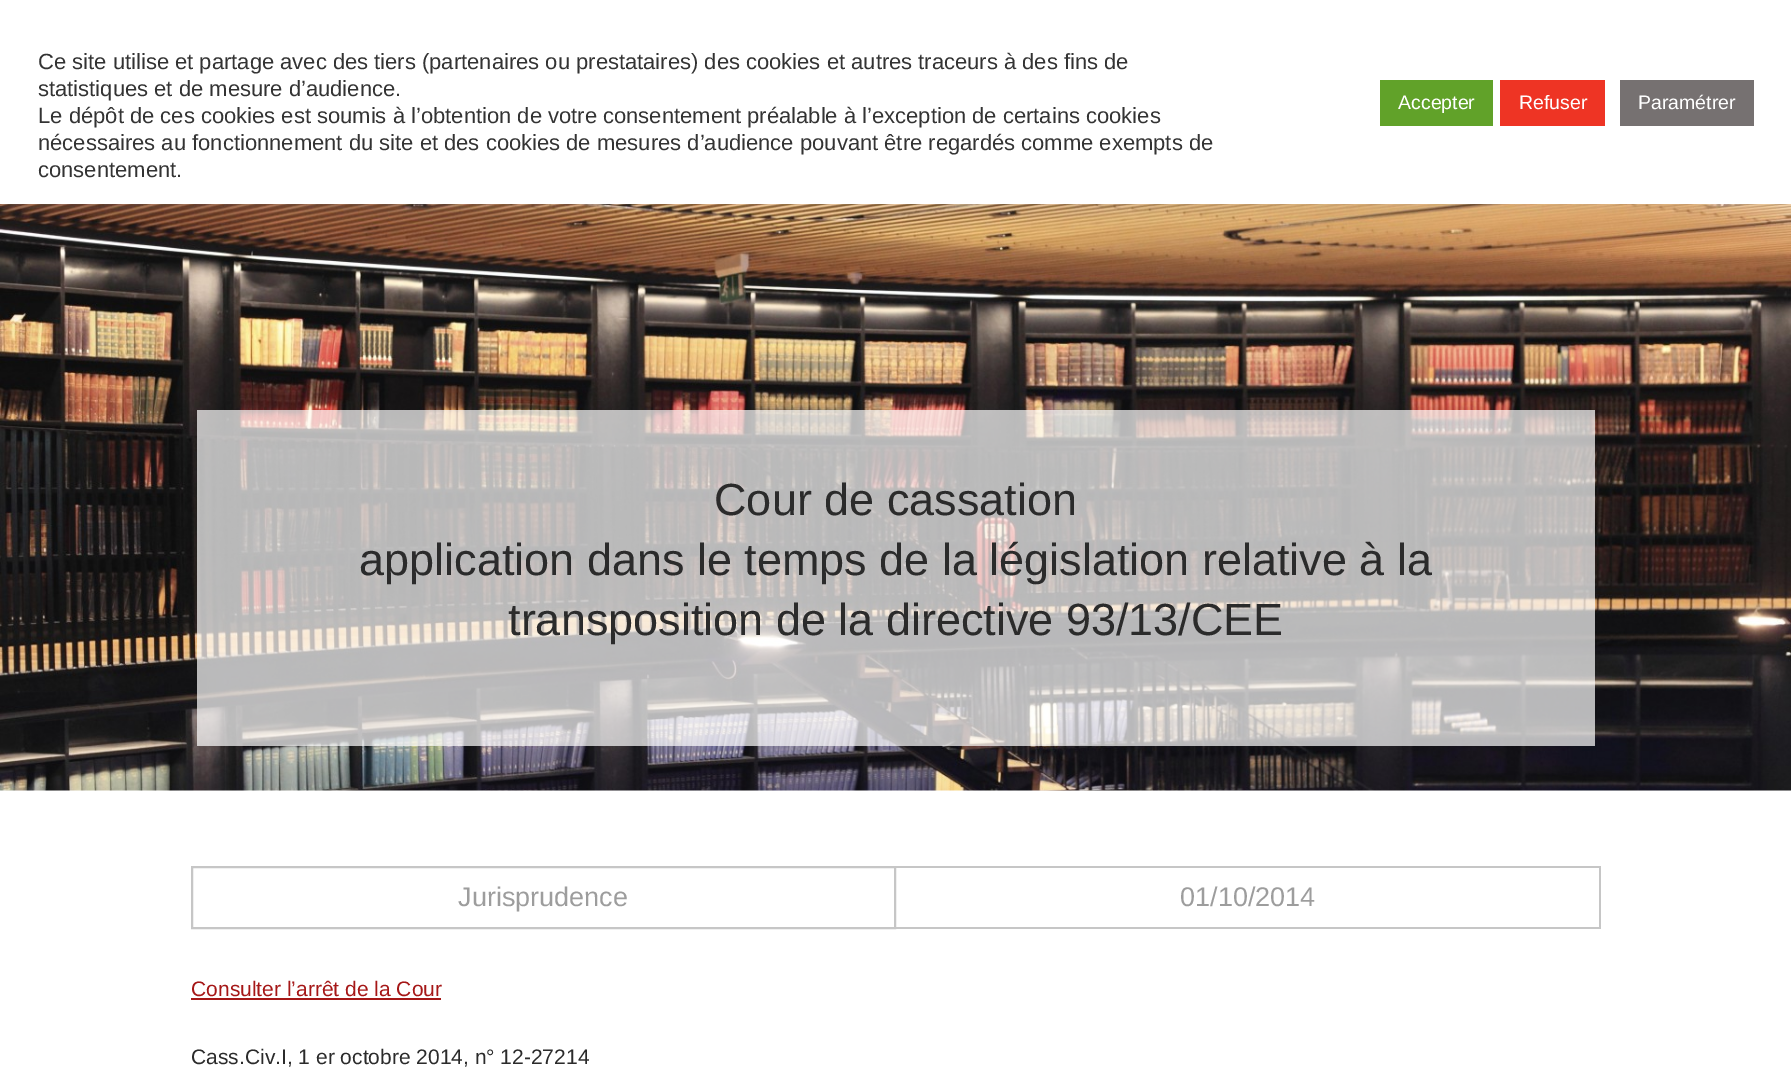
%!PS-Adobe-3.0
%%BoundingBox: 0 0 1791 1074
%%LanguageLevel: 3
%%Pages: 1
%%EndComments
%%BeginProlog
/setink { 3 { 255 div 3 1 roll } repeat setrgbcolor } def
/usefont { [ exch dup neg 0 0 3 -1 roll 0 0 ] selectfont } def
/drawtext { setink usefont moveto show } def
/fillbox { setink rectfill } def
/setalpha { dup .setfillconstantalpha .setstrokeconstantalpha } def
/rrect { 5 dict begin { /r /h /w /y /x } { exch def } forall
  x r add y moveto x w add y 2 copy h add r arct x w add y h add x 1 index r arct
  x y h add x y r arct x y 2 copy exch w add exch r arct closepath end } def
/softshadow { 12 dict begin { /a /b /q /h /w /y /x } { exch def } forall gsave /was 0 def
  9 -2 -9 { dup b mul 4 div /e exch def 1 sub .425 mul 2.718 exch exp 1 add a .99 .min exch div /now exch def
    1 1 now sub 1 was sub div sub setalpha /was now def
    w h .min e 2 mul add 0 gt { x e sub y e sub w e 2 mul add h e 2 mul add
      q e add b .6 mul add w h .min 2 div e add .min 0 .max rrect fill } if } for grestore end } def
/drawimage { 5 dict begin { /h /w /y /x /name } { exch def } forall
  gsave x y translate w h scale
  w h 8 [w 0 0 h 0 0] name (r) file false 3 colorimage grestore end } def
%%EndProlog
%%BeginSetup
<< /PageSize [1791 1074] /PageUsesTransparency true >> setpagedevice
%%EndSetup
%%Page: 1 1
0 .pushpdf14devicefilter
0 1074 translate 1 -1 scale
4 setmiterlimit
0 0 1791 1074 255 255 255 fillbox
(assets/img1.rgb) 0 204 1791 587 drawimage
172 171 171 setink
0 -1 1791 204 0 7.5 0.3 softshadow
0 0 1791 204 255 255 255 fillbox
(Ce site utilise et partage avec des tiers \(partenaires ou prestataires\) des cookies et autres traceurs à des fins de) 38 69 /LiberationSans-Regular 22 51 51 51 drawtext
(statistiques et de mesure d’audience.) 38 96 /LiberationSans-Regular 22 51 51 51 drawtext
(Le dépôt de ces cookies est soumis à l’obtention de votre consentement préalable à l’exception de certains cookies) 38 123 /LiberationSans-Regular 22 51 51 51 drawtext
(nécessaires au fonctionnement du site et des cookies de mesures d’audience pouvant être regardés comme exempts de) 38 150 /LiberationSans-Regular 22 51 51 51 drawtext
(consentement.) 38 177 /LiberationSans-Regular 22 51 51 51 drawtext
1380 80 113 46 97 162 41 fillbox
(Accepter) 1398 109 /LiberationSans-Regular 19.5 255 255 255 drawtext
1500 80 105 46 238 52 36 fillbox
(Refuser) 1519 109 /LiberationSans-Regular 19.5 255 255 255 drawtext
1620 80 134 46 118 113 113 fillbox
(Paramétrer) 1638 109 /LiberationSans-Regular 19.5 255 255 255 drawtext
0.7 setalpha
197 410 1398 336 255 255 255 fillbox
1 setalpha
(Cour de cassation) 714 515 /LiberationSans-Regular 45 43 43 43 drawtext
(application dans le temps de la législation relative à la) 359 575 /LiberationSans-Regular 45 43 43 43 drawtext
(transposition de la directive 93/13/CEE) 508 635 /LiberationSans-Regular 45 43 43 43 drawtext
198 198 198 setink
2 setlinewidth
192 867 703 61 rectstroke
(Jurisprudence) 458 906 /LiberationSans-Regular 27 157 157 157 drawtext
896 866 705 2 198 198 198 fillbox
1599 866 2 63 198 198 198 fillbox
896 927 705 2 198 198 198 fillbox
(01/10/2014) 1180 906 /LiberationSans-Regular 27 157 157 157 drawtext
(Consulter l’arrêt de la Cour) 191 996 /LiberationSans-Regular 21 165 23 23 drawtext
191 998 250 2 165 23 23 fillbox
(Cass.Civ.I, 1 er octobre 2014, n° 12-27214) 191 1064 /LiberationSans-Regular 21 43 43 43 drawtext
.poppdf14devicefilter showpage
%%EOF
